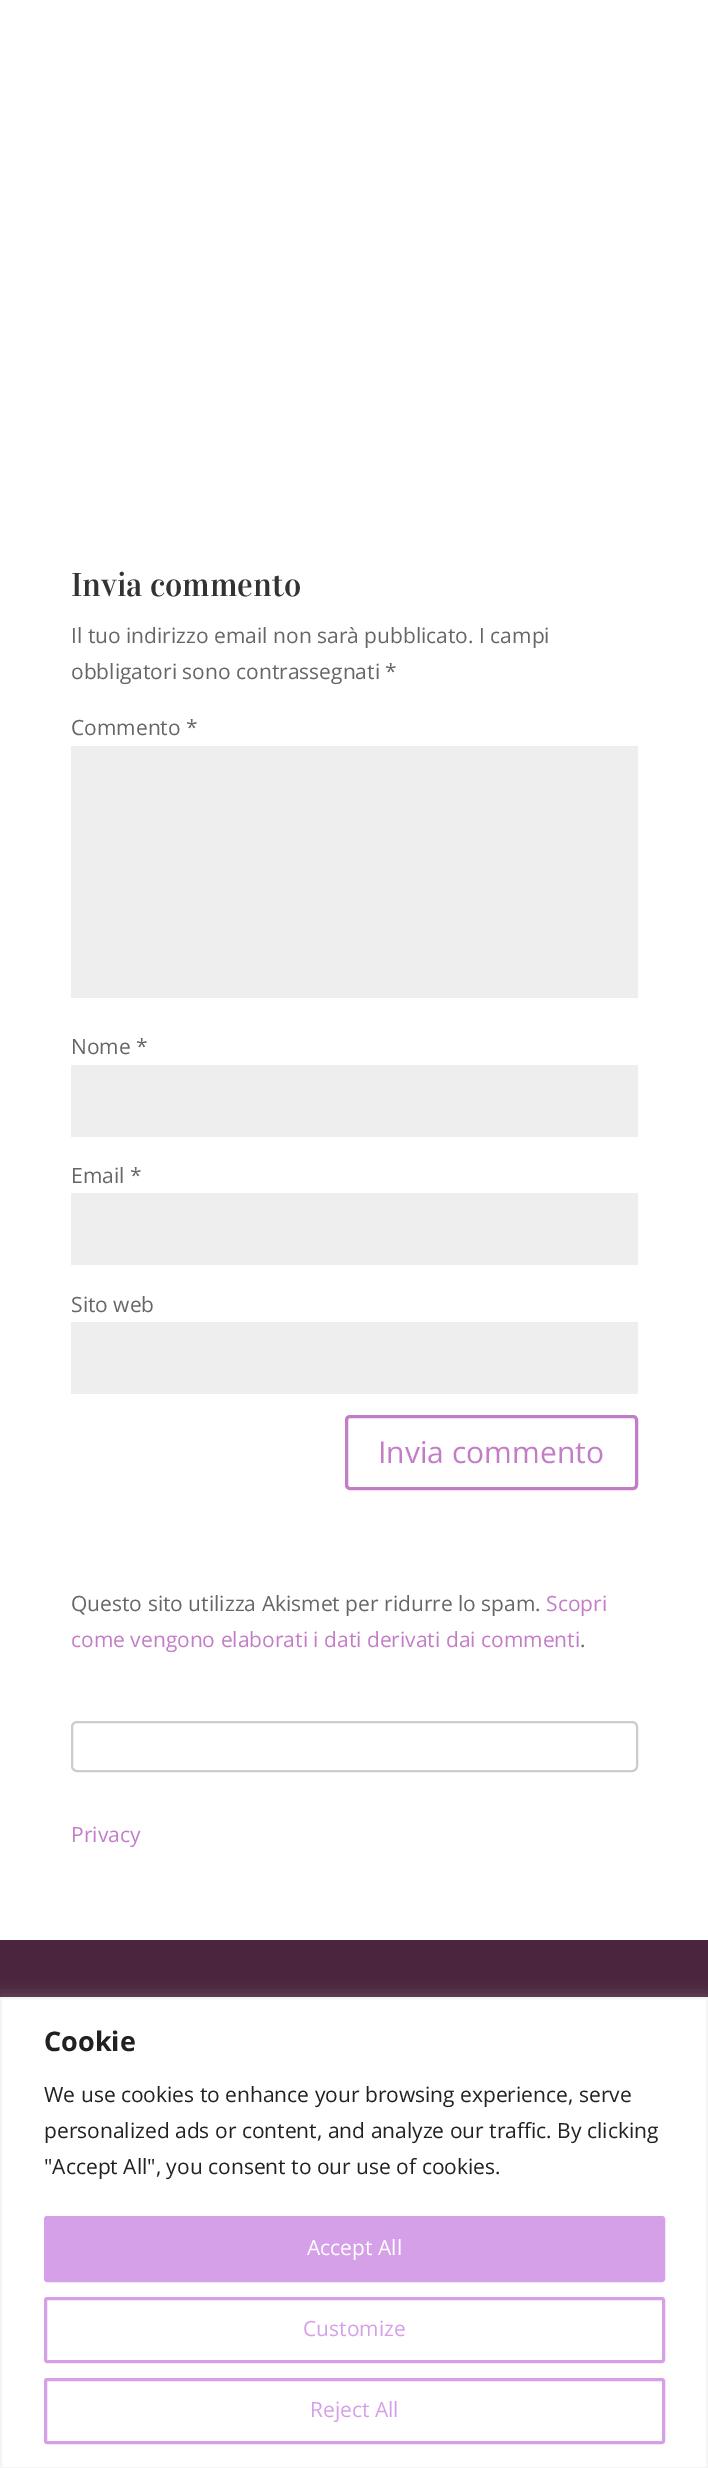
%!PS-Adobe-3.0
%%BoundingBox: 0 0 708 2468
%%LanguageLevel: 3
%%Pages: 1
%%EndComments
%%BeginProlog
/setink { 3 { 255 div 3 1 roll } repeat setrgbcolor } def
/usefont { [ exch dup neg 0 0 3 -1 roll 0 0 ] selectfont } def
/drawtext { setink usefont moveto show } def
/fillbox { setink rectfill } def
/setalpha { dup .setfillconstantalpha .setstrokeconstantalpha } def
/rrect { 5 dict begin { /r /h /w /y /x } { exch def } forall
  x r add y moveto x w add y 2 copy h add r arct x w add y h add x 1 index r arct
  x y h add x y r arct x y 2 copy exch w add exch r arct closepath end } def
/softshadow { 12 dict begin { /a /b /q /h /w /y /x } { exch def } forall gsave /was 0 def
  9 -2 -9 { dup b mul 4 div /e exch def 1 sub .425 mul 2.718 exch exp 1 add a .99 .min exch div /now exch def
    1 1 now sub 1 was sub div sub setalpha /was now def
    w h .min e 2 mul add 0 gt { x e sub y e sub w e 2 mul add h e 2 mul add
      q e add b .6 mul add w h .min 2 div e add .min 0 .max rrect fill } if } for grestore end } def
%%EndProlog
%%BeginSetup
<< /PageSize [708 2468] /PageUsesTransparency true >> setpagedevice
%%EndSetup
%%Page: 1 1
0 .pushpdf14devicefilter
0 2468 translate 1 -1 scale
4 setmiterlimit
0 0 708 2468 255 255 255 fillbox
(Invia commento) 71 596 /Vidaloka-Regular 33 51 51 51 drawtext
(Il tuo indirizzo email non sarà pubblicato. I campi) 71 643 /OpenSans-Regular 21 102 102 102 drawtext
(obbligatori sono contrassegnati *) 71 679 /OpenSans-Regular 21 102 102 102 drawtext
(Commento *) 71 735 /OpenSans-Regular 21 102 102 102 drawtext
71 746 567 252 238 238 238 fillbox
(Nome *) 71 1054 /OpenSans-Regular 21 102 102 102 drawtext
71 1065 567 72 238 238 238 fillbox
(Email *) 71 1183 /OpenSans-Regular 21 102 102 102 drawtext
71 1193 567 72 238 238 238 fillbox
(Sito web) 71 1312 /OpenSans-Regular 21 102 102 102 drawtext
71 1322 567 72 238 238 238 fillbox
195 124 198 setink
3 setlinewidth
346.5 1416.5 290 72 3.5 rrect stroke
(Invia commento) 378 1463 /OpenSans-Regular 30 195 124 198 drawtext
(Questo sito utilizza Akismet per ridurre lo spam.) 71 1611 /OpenSans-Regular 21 102 102 102 drawtext
(Scopri) 546 1611 /OpenSans-Regular 21 195 124 198 drawtext
(come vengono elaborati i dati derivati dai commenti) 71 1647 /OpenSans-Regular 21 195 124 198 drawtext
(.) 580 1647 /OpenSans-Regular 21 102 102 102 drawtext
204 204 204 setink
2 setlinewidth
72 1722 565 49 5 rrect stroke
(Privacy) 71 1842 /OpenSans-Regular 21 195 124 198 drawtext
0 1940 708 57 75 37 62 fillbox
172 171 171 setink
0 1995 708 473 0 7.5 0.3 softshadow
255 255 255 setink
1 1998 moveto 707 1998 lineto 707 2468 lineto 1 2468 lineto closepath gsave fill grestore
244 244 244 setink
stroke
(Cookie) 44 2051 /OpenSans-Bold 27 33 33 33 drawtext
(We use cookies to enhance your browsing experience, serve) 44 2102 /OpenSans-Regular 21 33 33 33 drawtext
(personalized ads or content, and analyze our traffic. By clicking) 44 2138 /OpenSans-Regular 21 33 33 33 drawtext
("Accept All", you consent to our use of cookies.) 44 2174 /OpenSans-Regular 21 33 33 33 drawtext
213 160 232 setink
45.5 2217.5 618 63 1.5 rrect gsave fill grestore
3 setlinewidth
stroke
(Accept All) 307 2255 /OpenSans-Regular 21 255 255 255 drawtext
213 160 232 setink
45.5 2298.5 618 63 1.5 rrect stroke
(Customize) 303 2336 /OpenSans-Regular 21 213 160 232 drawtext
45.5 2379.5 618 63 1.5 rrect stroke
(Reject All) 310 2417 /OpenSans-Regular 21 213 160 232 drawtext
.poppdf14devicefilter showpage
%%EOF
